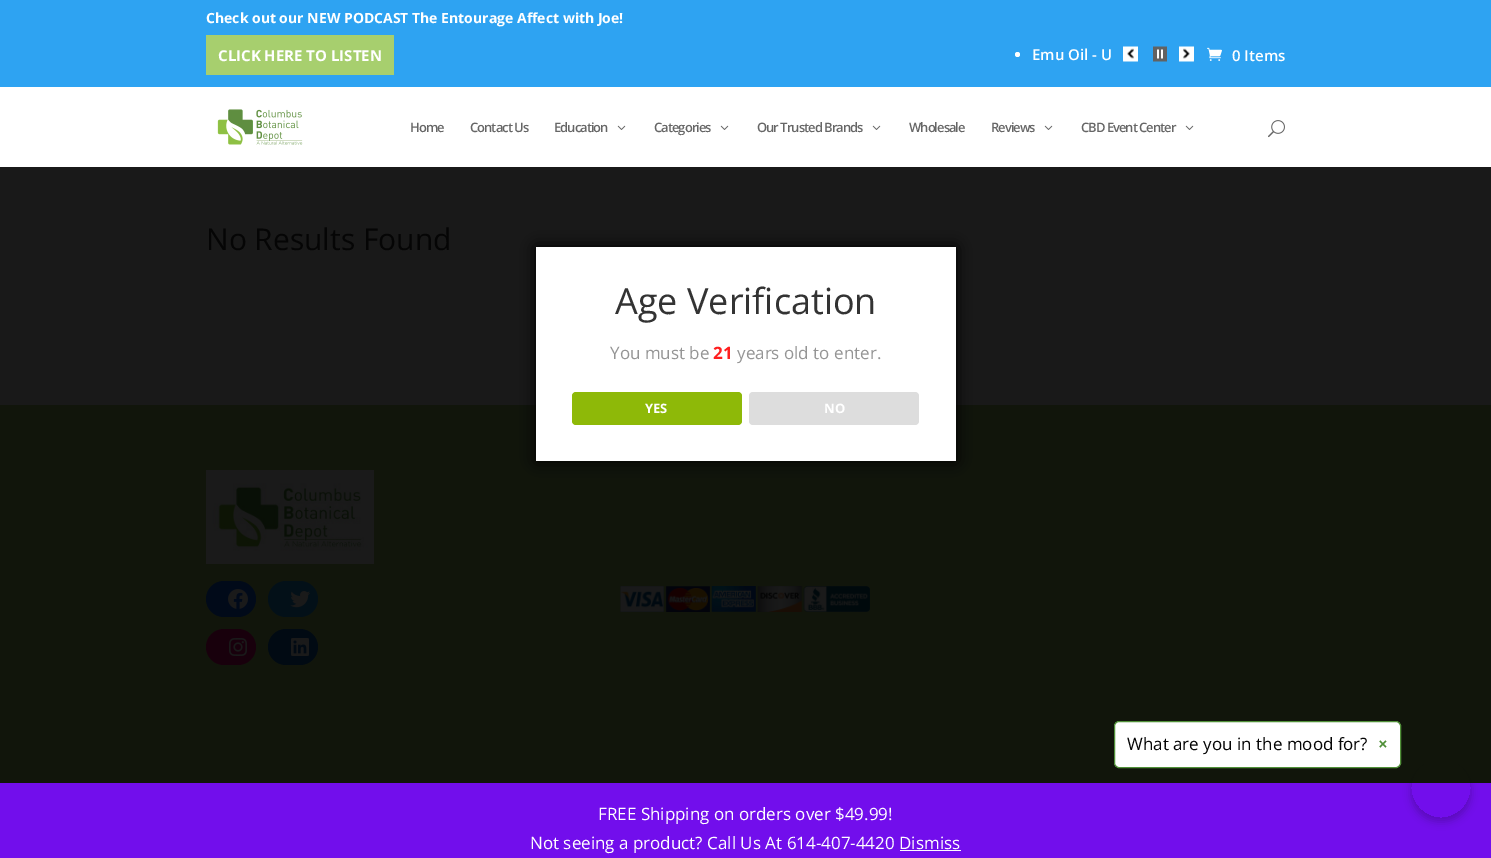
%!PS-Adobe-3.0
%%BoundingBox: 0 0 1491 858
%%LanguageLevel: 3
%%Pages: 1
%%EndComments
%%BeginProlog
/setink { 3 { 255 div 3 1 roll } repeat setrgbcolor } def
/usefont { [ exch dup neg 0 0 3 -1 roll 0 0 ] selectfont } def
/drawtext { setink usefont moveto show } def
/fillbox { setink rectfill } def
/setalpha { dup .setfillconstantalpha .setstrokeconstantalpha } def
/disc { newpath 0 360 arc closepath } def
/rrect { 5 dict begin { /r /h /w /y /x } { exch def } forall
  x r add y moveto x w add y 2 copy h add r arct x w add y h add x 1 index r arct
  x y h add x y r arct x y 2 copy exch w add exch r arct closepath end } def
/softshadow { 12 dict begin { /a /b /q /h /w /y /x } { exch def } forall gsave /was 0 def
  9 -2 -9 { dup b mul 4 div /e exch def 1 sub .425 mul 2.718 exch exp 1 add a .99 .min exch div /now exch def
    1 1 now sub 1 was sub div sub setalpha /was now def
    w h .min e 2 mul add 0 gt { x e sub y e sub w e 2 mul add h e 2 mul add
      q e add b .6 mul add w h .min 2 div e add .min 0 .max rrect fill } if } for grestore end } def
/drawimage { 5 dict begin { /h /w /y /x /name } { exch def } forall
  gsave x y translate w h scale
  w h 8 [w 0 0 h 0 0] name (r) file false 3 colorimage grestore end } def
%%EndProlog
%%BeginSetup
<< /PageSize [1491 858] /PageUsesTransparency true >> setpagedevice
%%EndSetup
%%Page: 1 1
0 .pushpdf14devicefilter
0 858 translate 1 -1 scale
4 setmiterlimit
0 0 1491 858 25 25 25 fillbox
0 0 1491 87 46 163 242 fillbox
(Check out our NEW PODCAST The Entourage Affect with Joe!) 206 23 /OpenSans-Bold 14 255 255 255 drawtext
206 35 188 40 167 207 110 fillbox
(CLICK HERE TO LISTEN) 218 61 /OpenSans-Bold 15 255 255 255 drawtext
1017.5 54.5 2.5 disc fill
(Emu Oil - U) 1032 60 /OpenSans-SemiBold 15 255 255 255 drawtext
(assets/img1.rgb) 1123 46 15 16 drawimage
(assets/img2.rgb) 1153 46 14 16 drawimage
(assets/img3.rgb) 1179 46 15 16 drawimage
(assets/img4.rgb) 1207 47 15 14 drawimage
(0 Items) 1232 61 /OpenSans-SemiBold 15 255 255 255 drawtext
0 87 1491 80 255 255 255 fillbox
(assets/img5.rgb) 217 109 86 36 drawimage
/OpenSans-SemiBold 13 usefont
102 102 102 setink
410 132 moveto -1 0 (Home) ashow
470 132 moveto -1 0 (Contact Us) ashow
554 132 moveto -1 0 (Education) ashow
(assets/img6.rgb) 617 125 9 5 drawimage
654 132 moveto -1 0 (Categories) ashow
(assets/img6.rgb) 720 125 9 5 drawimage
757 132 moveto -1 0 (Our Trusted Brands) ashow
(assets/img6.rgb) 872 125 9 5 drawimage
909 132 moveto -1 0 (Wholesale) ashow
991 132 moveto -1 0 (Reviews) ashow
(assets/img6.rgb) 1044 125 9 5 drawimage
1081 132 moveto -1 0 (CBD Event Center) ashow
(assets/img6.rgb) 1185 125 9 5 drawimage
(assets/img7.rgb) 1268 120 17 18 drawimage
1059 167 1 1 21 21 21 fillbox
(No Results Found) 206 250 /OpenSans-Regular 30 5 5 5 drawtext
0 405 1491 378 17 21 11 fillbox
(assets/img8.rgb) 620 586 250 26 drawimage
(assets/img9.rgb) 206 470 168 94 drawimage
1 10 25 setink
206 581 50 36 18 rrect fill
(assets/img10.rgb) 228 589 20 20 drawimage
3 16 24 setink
268 581 50 36 18 rrect fill
(assets/img11.rgb) 290 591 20 17 drawimage
24 0 12 setink
206 629 50 36 18 rrect fill
(assets/img12.rgb) 229 638 18 18 drawimage
1 10 19 setink
268 629 50 36 18 rrect fill
(assets/img13.rgb) 291 638 18 18 drawimage
0 783 1491 75 114 14 236 fillbox
gsave
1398 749 moveto 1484 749 lineto 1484 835 lineto 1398 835 lineto closepath 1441 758 moveto 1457.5 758 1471 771.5 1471 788 curveto 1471 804.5 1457.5 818 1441 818 curveto 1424.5 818 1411 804.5 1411 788 curveto 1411 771.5 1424.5 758 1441 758 curveto closepath eoclip newpath
0 0 0 setink
1411 762 60 60 30 4 0.2 softshadow
grestore
255 255 255 setink
1114.5 721.5 286 46 4.5 rrect gsave fill grestore
80 144 56 setink
stroke
(What are you in the mood for?) 1127 750 /OpenSans-Regular 17 5 5 5 drawtext
(×) 1378 750 /OpenSans-Bold 17 80 144 56 drawtext
0 0 0 setink
536 247 420 214 0 7.5 1 softshadow
536 247 420 214 255 255 255 fillbox
(Age Verification) 615 314 /OpenSans-Regular 36 51 51 51 drawtext
(You must be) 610 359 /OpenSans-Regular 17 149 149 149 drawtext
(21) 713 359 /OpenSans-Bold 17 255 31 31 drawtext
(years old to enter.) 737 359 /OpenSans-Regular 17 149 149 149 drawtext
142 185 8 setink
572 392 170 33 4 rrect fill
(YES) 645 413 /OpenSans-Bold 13 255 255 255 drawtext
221 221 221 setink
749 392 170 33 4 rrect fill
(NO) 824 413 /OpenSans-Bold 13 255 255 255 drawtext
(FREE Shipping on orders over $49.99!) 598 820 /OpenSans-Regular 17 255 255 255 drawtext
(Not seeing a product? Call Us At 614-407-4420 Dismiss) 530 849 /OpenSans-Regular 17 255 255 255 drawtext
900 850 61 1 252 251 254 fillbox
.poppdf14devicefilter showpage
%%EOF
